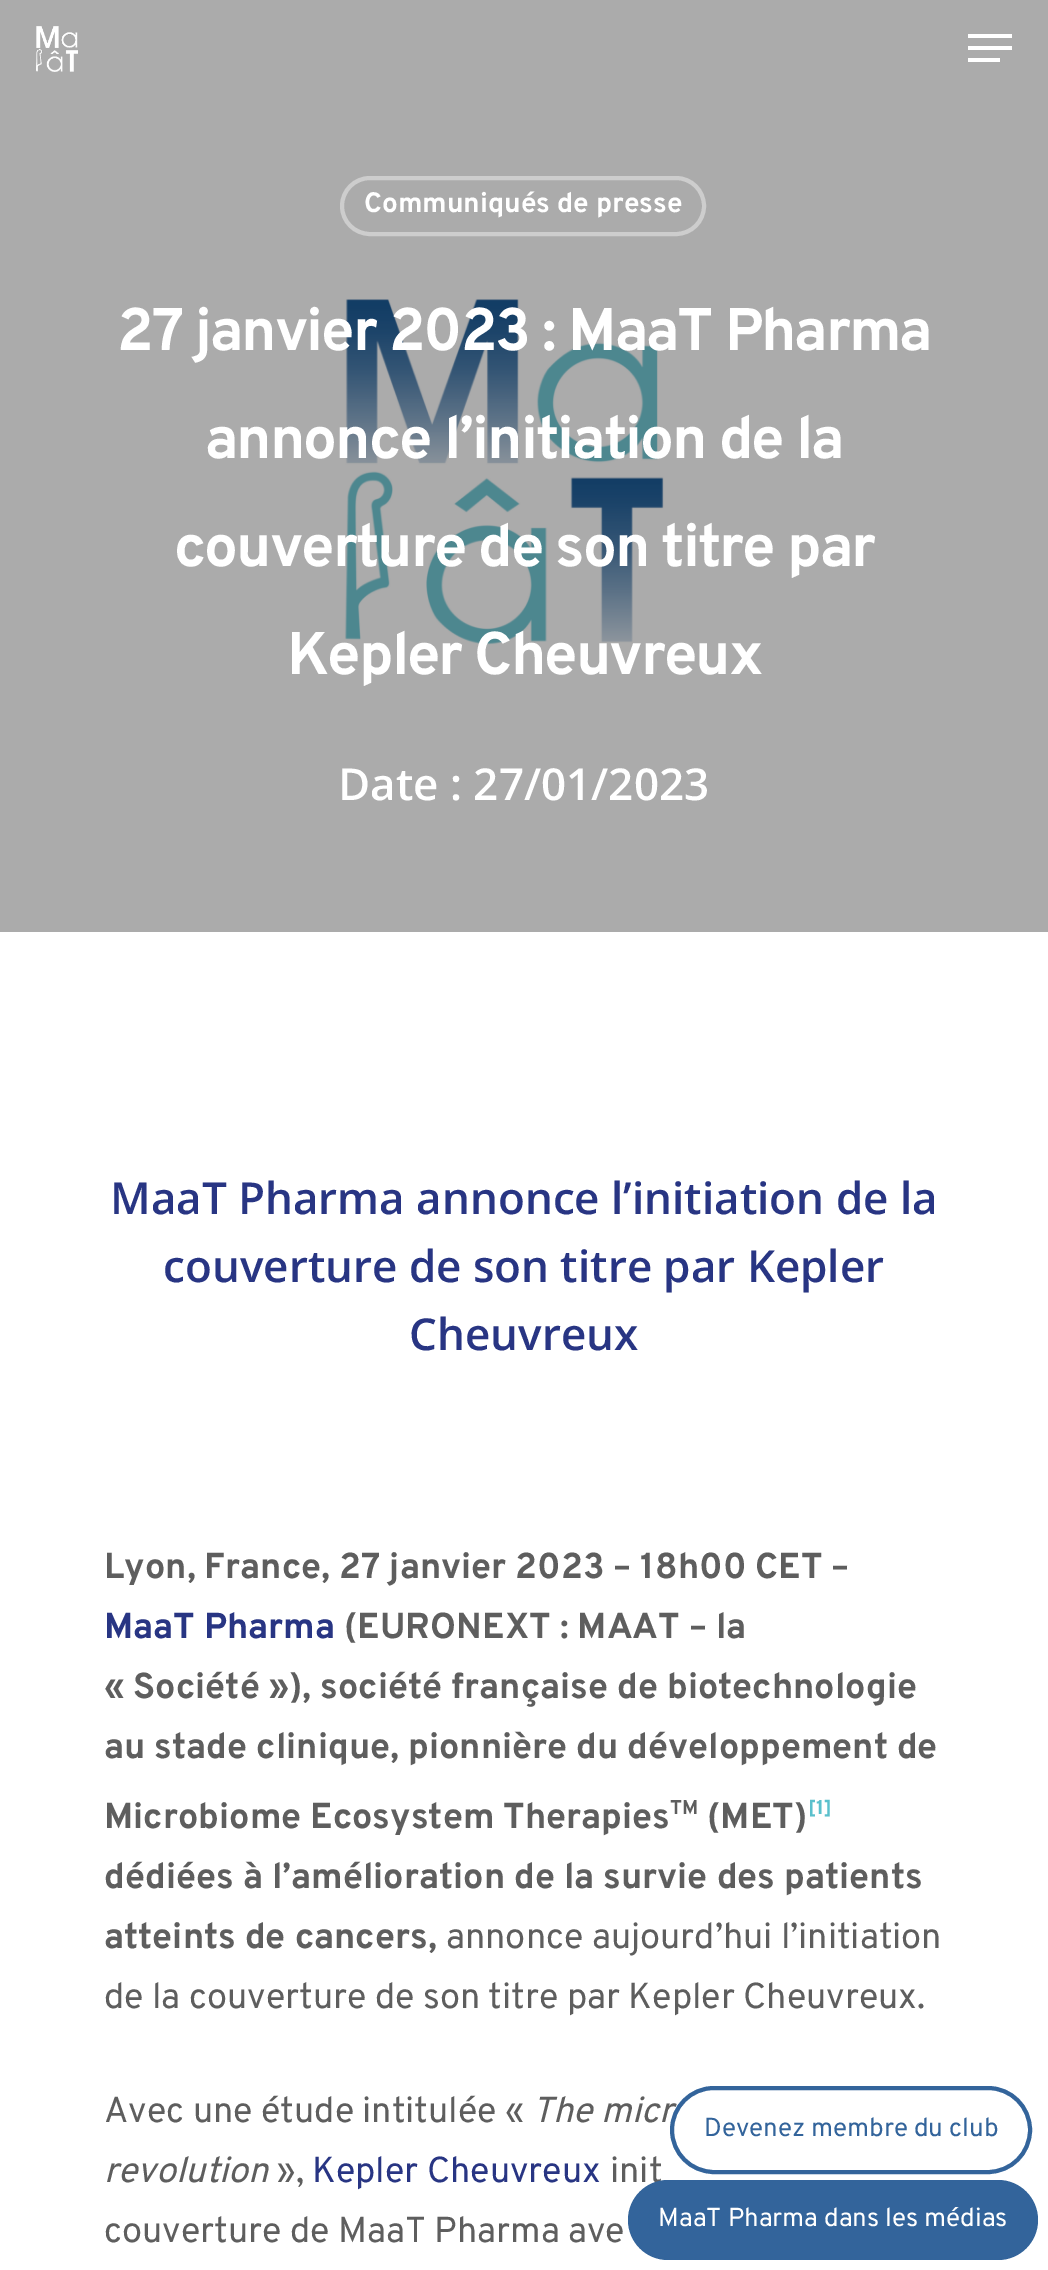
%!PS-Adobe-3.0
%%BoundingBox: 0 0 1048 2270
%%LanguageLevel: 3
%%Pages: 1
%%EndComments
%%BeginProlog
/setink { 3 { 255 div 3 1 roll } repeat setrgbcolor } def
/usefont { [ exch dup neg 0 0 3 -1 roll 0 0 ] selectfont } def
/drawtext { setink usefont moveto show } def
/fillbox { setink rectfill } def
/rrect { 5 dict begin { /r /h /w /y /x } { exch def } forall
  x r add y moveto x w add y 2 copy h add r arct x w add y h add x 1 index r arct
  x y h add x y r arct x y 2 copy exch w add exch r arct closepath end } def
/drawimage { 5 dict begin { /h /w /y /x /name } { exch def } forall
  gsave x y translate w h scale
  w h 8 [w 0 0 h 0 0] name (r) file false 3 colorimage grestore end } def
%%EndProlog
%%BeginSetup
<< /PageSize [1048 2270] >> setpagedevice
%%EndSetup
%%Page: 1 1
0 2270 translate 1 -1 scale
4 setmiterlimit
0 0 1048 2270 255 255 255 fillbox
(assets/img2.rgb) 0 0 1048 932 drawimage
(assets/img1.rgb) 36 26 42 46 drawimage
968 34 44 4 255 255 255 fillbox
968 58 32 4 255 255 255 fillbox
968 46 44 4 255 255 255 fillbox
205 205 205 setink
4 setlinewidth
342 178 362 56 28 rrect stroke
(Communiqués de presse) 364 212 /Overpass-Bold 28 255 255 255 drawtext
/Overpass-Bold 60 usefont
117 350 moveto -2 0 (27 janvier 2023 : MaaT Pharma) ashow
205 458 moveto -2 0 (annonce l’initiation de la) ashow
174 566 moveto -2 0 (couverture de son titre par) ashow
287 674 moveto -2 0 (Kepler Cheuvreux) ashow
(Date : 27/01/2023) 338 800 /OpenSans-SemiBold 44 255 255 255 drawtext
(MaaT Pharma annonce l’initiation de la) 110 1214 /OpenSans-SemiBold 44 40 53 131 drawtext
(couverture de son titre par Kepler) 163 1282 /OpenSans-SemiBold 44 40 53 131 drawtext
(Cheuvreux) 409 1350 /OpenSans-SemiBold 44 40 53 131 drawtext
(Lyon, France, 27 janvier 2023 – 18h00 CET –) 104 1578 /Overpass-Bold 36 94 94 94 drawtext
(MaaT Pharma) 104 1638 /Overpass-Bold 36 40 53 131 drawtext
(\(EURONEXT : MAAT – la) 344 1638 /Overpass-Bold 36 94 94 94 drawtext
(« Société »\), société française de biotechnologie) 104 1698 /Overpass-Bold 36 94 94 94 drawtext
(au stade clinique, pionnière du développement de) 104 1758 /Overpass-Bold 36 94 94 94 drawtext
(Microbiome Ecosystem Therapies) 104 1828 /Overpass-Bold 36 94 94 94 drawtext
(TM) 670 1814 /Overpass-Bold 20 94 94 94 drawtext
(\(MET\)) 707 1828 /Overpass-Bold 36 94 94 94 drawtext
([1]) 808 1814 /Overpass-Bold 20 91 192 204 drawtext
(dédiées à l’amélioration de la survie des patients) 104 1888 /Overpass-Bold 36 94 94 94 drawtext
(atteints de cancers,) 104 1948 /Overpass-Bold 36 94 94 94 drawtext
(annonce aujourd’hui l’initiation) 446 1948 /Overpass-Regular 36 94 94 94 drawtext
(de la couverture de son titre par Kepler Cheuvreux.) 104 2008 /Overpass-Regular 36 94 94 94 drawtext
(Avec une étude intitulée «) 104 2122 /Overpass-Regular 36 94 94 94 drawtext
(The micr) 532 2122 /Overpass-Italic 36 94 94 94 drawtext
(revolution) 104 2182 /Overpass-Italic 36 94 94 94 drawtext
(»,) 277 2182 /Overpass-Regular 36 94 94 94 drawtext
(Kepler Cheuvreux) 312 2182 /Overpass-Regular 36 40 53 131 drawtext
(init) 610 2182 /Overpass-Regular 36 94 94 94 drawtext
(couverture de MaaT Pharma ave) 104 2242 /Overpass-Regular 36 94 94 94 drawtext
51 100 155 setink
672 2088 358 84 42 rrect stroke
(Devenez membre du club) 704 2136 /Overpass-Regular 26 51 100 155 drawtext
628 2180 410 80 40 rrect fill
(MaaT Pharma dans les médias) 658 2226 /Overpass-Regular 26 255 255 255 drawtext
showpage
%%EOF
